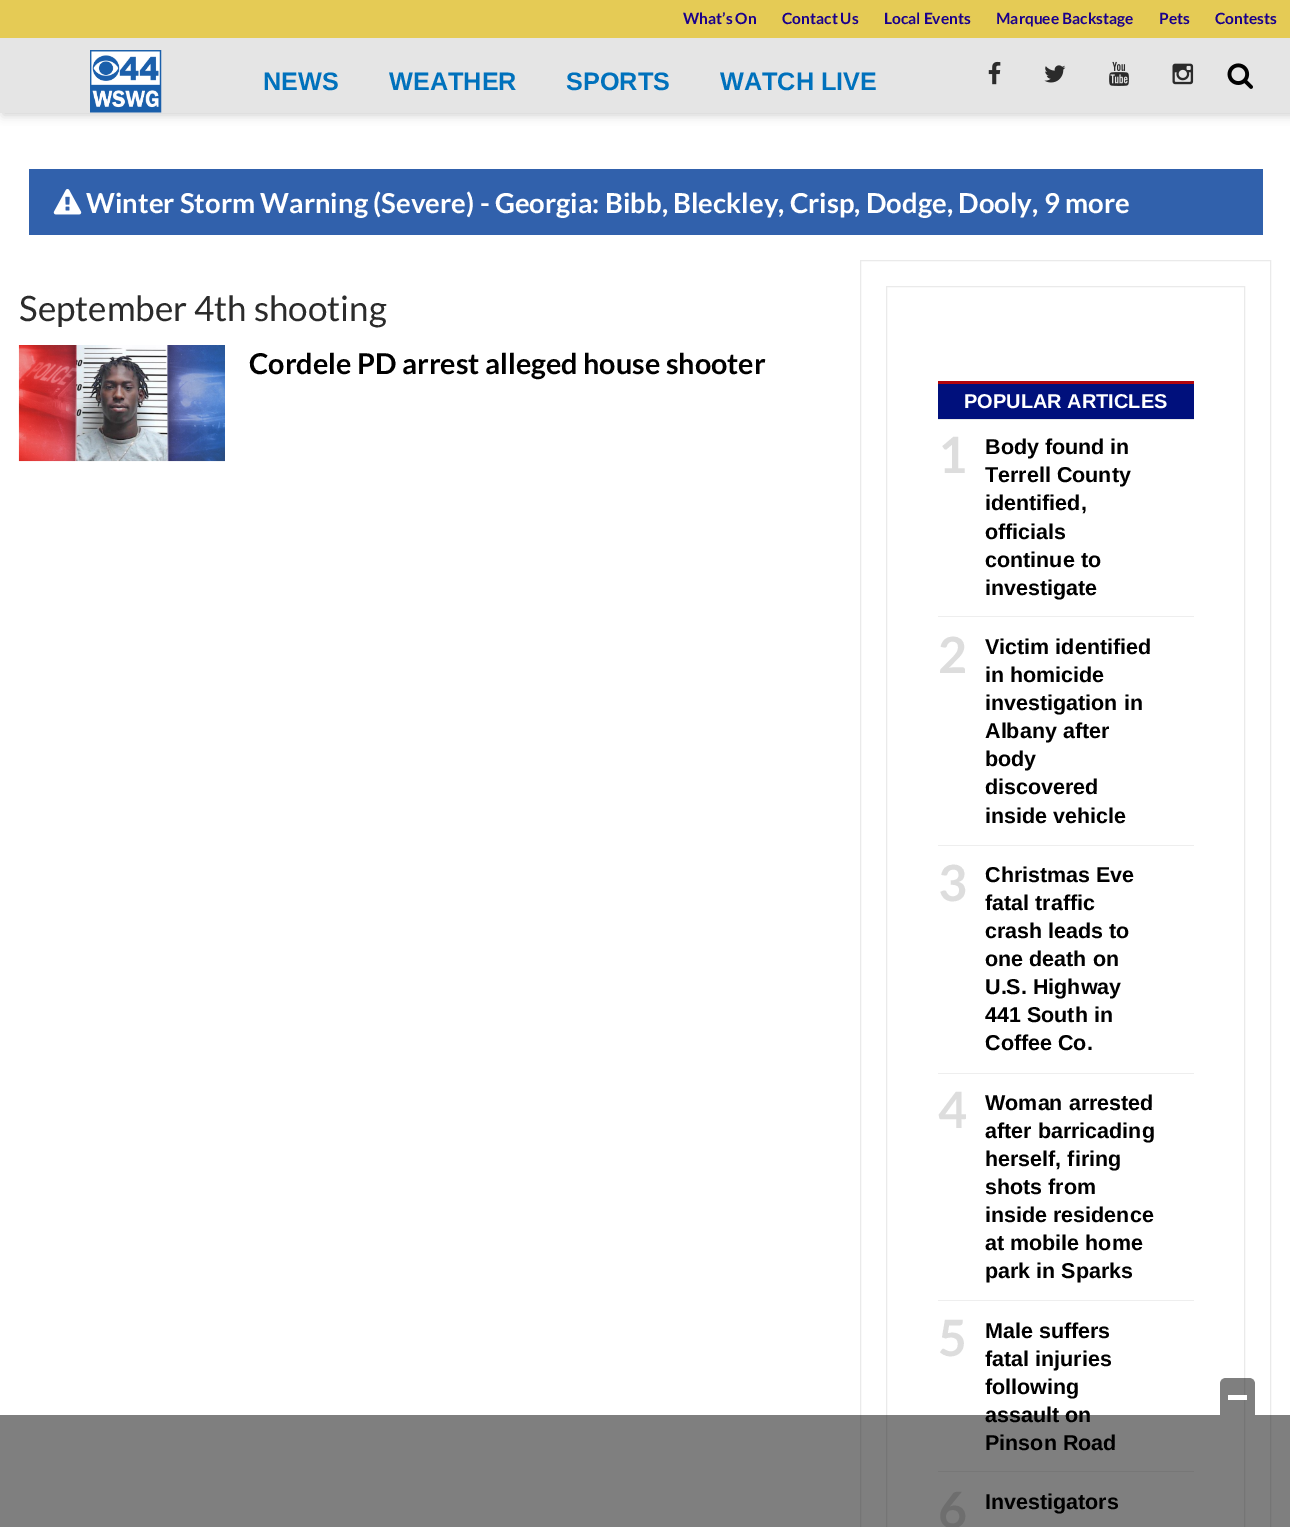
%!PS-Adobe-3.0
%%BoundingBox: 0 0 1290 1527
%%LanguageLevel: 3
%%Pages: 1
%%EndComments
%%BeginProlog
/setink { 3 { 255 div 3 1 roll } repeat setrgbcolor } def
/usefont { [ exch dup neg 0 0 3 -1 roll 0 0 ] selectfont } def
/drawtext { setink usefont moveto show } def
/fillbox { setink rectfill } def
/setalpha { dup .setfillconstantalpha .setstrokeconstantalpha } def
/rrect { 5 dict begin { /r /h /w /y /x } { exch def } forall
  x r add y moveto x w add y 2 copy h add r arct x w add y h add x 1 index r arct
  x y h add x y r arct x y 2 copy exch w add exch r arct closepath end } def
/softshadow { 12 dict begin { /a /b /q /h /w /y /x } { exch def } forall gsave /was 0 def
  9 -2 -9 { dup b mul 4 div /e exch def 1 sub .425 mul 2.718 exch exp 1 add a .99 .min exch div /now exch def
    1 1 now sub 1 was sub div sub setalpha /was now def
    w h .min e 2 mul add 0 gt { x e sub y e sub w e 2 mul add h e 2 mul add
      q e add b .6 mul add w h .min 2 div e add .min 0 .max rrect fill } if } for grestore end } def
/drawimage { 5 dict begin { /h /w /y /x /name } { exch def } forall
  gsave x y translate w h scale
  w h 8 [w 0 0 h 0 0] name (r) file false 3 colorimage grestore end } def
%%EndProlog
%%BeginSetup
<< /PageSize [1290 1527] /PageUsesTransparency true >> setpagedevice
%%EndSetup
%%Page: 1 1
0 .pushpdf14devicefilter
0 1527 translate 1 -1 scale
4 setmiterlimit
0 0 1290 1527 255 255 255 fillbox
204 204 204 setink
3 3 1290 112 0 5 1 softshadow
0 38 1290 75 229 229 229 fillbox
0 0 1290 38 229 203 85 fillbox
(What’s On) 683 24 /Lato-Bold 15.5 26 0 139 drawtext
(Contact Us) 782 24 /Lato-Bold 15.5 26 0 139 drawtext
(Local Events) 884 24 /Lato-Bold 15.5 26 0 139 drawtext
(Marquee Backstage) 996 24 /Lato-Bold 15.5 26 0 139 drawtext
(Pets) 1159 24 /Lato-Bold 15.5 26 0 139 drawtext
(Contests) 1215 24 /Lato-Bold 15.5 26 0 139 drawtext
(assets/img1.rgb) 90 50 72 63 drawimage
(NEWS) 263 90 /LiberationSans-Bold 25.25 0 113 188 drawtext
(WEATHER) 389 90 /LiberationSans-Bold 25.25 0 113 188 drawtext
(SPORTS) 566 90 /LiberationSans-Bold 25.25 0 113 188 drawtext
(WATCH LIVE) 720 90 /LiberationSans-Bold 25.25 0 113 188 drawtext
(assets/img2.rgb) 988 61 13 24 drawimage
(assets/img3.rgb) 1044 65 22 18 drawimage
(assets/img4.rgb) 1109 61 20 25 drawimage
(assets/img5.rgb) 1172 63 22 22 drawimage
(assets/img6.rgb) 1227 63 26 26 drawimage
29 169 1234 66 49 97 172 fillbox
(assets/img7.rgb) 53 189 29 26 drawimage
(Winter Storm Warning \(Severe\) - Georgia: Bibb, Bleckley, Crisp, Dodge, Dooly, 9 more) 86 213 /Lato-Bold 27.5 255 255 255 drawtext
234 234 234 setink
860.5 260.5 410 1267 rectstroke
886.5 286.5 358 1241 rectstroke
938 1471 256 1 238 238 238 fillbox
(assault on) 985 1422 /LiberationSans-Bold 21.5 0 0 0 drawtext
(Pinson Road) 985 1450 /LiberationSans-Bold 21.5 0 0 0 drawtext
(6) 938 1528 /Lato-Bold 50 221 221 221 drawtext
(Investigators) 985 1509 /LiberationSans-Bold 21.5 0 0 0 drawtext
0.5 setalpha
0 1415 1290 112 0 0 0 fillbox
1226 1378 moveto 1249 1378 lineto 1252.5 1378 1255 1380.5 1255 1384 curveto 1255 1415 lineto 1220 1415 lineto 1220 1384 lineto 1220 1380.5 1222.5 1378 1226 1378 curveto closepath fill
1 setalpha
1228 1395 19 5 255 255 255 fillbox
(September 4th shooting) 19 321 /Lato-Regular 35 43 43 43 drawtext
(assets/img8.rgb) 18 345 207 117 drawimage
(Cordele PD arrest alleged house shooter) 249 374 /Lato-Bold 28.75 0 0 0 drawtext
938 384 256 35 0 16 124 fillbox
938 381 256 3 177 5 13 fillbox
938 419 256 1 234 234 234 fillbox
(POPULAR ARTICLES) 964 408 /LiberationSans-Bold 20 255 255 255 drawtext
938 616 256 1 238 238 238 fillbox
(1) 938 473 /Lato-Bold 50 221 221 221 drawtext
(Body found in) 985 454 /LiberationSans-Bold 21.5 0 0 0 drawtext
(Terrell County) 985 482 /LiberationSans-Bold 21.5 0 0 0 drawtext
(identified,) 985 510 /LiberationSans-Bold 21.5 0 0 0 drawtext
(officials) 985 539 /LiberationSans-Bold 21.5 0 0 0 drawtext
(continue to) 985 567 /LiberationSans-Bold 21.5 0 0 0 drawtext
(investigate) 985 595 /LiberationSans-Bold 21.5 0 0 0 drawtext
938 845 256 1 238 238 238 fillbox
(2) 938 673 /Lato-Bold 50 221 221 221 drawtext
(Victim identified) 985 654 /LiberationSans-Bold 21.5 0 0 0 drawtext
(in homicide) 985 682 /LiberationSans-Bold 21.5 0 0 0 drawtext
(investigation in) 985 710 /LiberationSans-Bold 21.5 0 0 0 drawtext
(Albany after) 985 738 /LiberationSans-Bold 21.5 0 0 0 drawtext
(body) 985 766 /LiberationSans-Bold 21.5 0 0 0 drawtext
(discovered) 985 794 /LiberationSans-Bold 21.5 0 0 0 drawtext
(inside vehicle) 985 823 /LiberationSans-Bold 21.5 0 0 0 drawtext
938 1073 256 1 238 238 238 fillbox
(3) 938 901 /Lato-Bold 50 221 221 221 drawtext
(Christmas Eve) 985 882 /LiberationSans-Bold 21.5 0 0 0 drawtext
(fatal traffic) 985 910 /LiberationSans-Bold 21.5 0 0 0 drawtext
(crash leads to) 985 938 /LiberationSans-Bold 21.5 0 0 0 drawtext
(one death on) 985 966 /LiberationSans-Bold 21.5 0 0 0 drawtext
(U.S. Highway) 985 994 /LiberationSans-Bold 21.5 0 0 0 drawtext
(441 South in) 985 1022 /LiberationSans-Bold 21.5 0 0 0 drawtext
(Coffee Co.) 985 1050 /LiberationSans-Bold 21.5 0 0 0 drawtext
938 1300 256 1 238 238 238 fillbox
(4) 938 1128 /Lato-Bold 50 221 221 221 drawtext
(Woman arrested) 985 1110 /LiberationSans-Bold 21.5 0 0 0 drawtext
(after barricading) 985 1138 /LiberationSans-Bold 21.5 0 0 0 drawtext
(herself, firing) 985 1166 /LiberationSans-Bold 21.5 0 0 0 drawtext
(shots from) 985 1194 /LiberationSans-Bold 21.5 0 0 0 drawtext
(inside residence) 985 1222 /LiberationSans-Bold 21.5 0 0 0 drawtext
(at mobile home) 985 1250 /LiberationSans-Bold 21.5 0 0 0 drawtext
(park in Sparks) 985 1278 /LiberationSans-Bold 21.5 0 0 0 drawtext
(5) 938 1356 /Lato-Bold 50 221 221 221 drawtext
(Male suffers) 985 1338 /LiberationSans-Bold 21.5 0 0 0 drawtext
(fatal injuries) 985 1366 /LiberationSans-Bold 21.5 0 0 0 drawtext
(following) 985 1394 /LiberationSans-Bold 21.5 0 0 0 drawtext
.poppdf14devicefilter showpage
%%EOF
